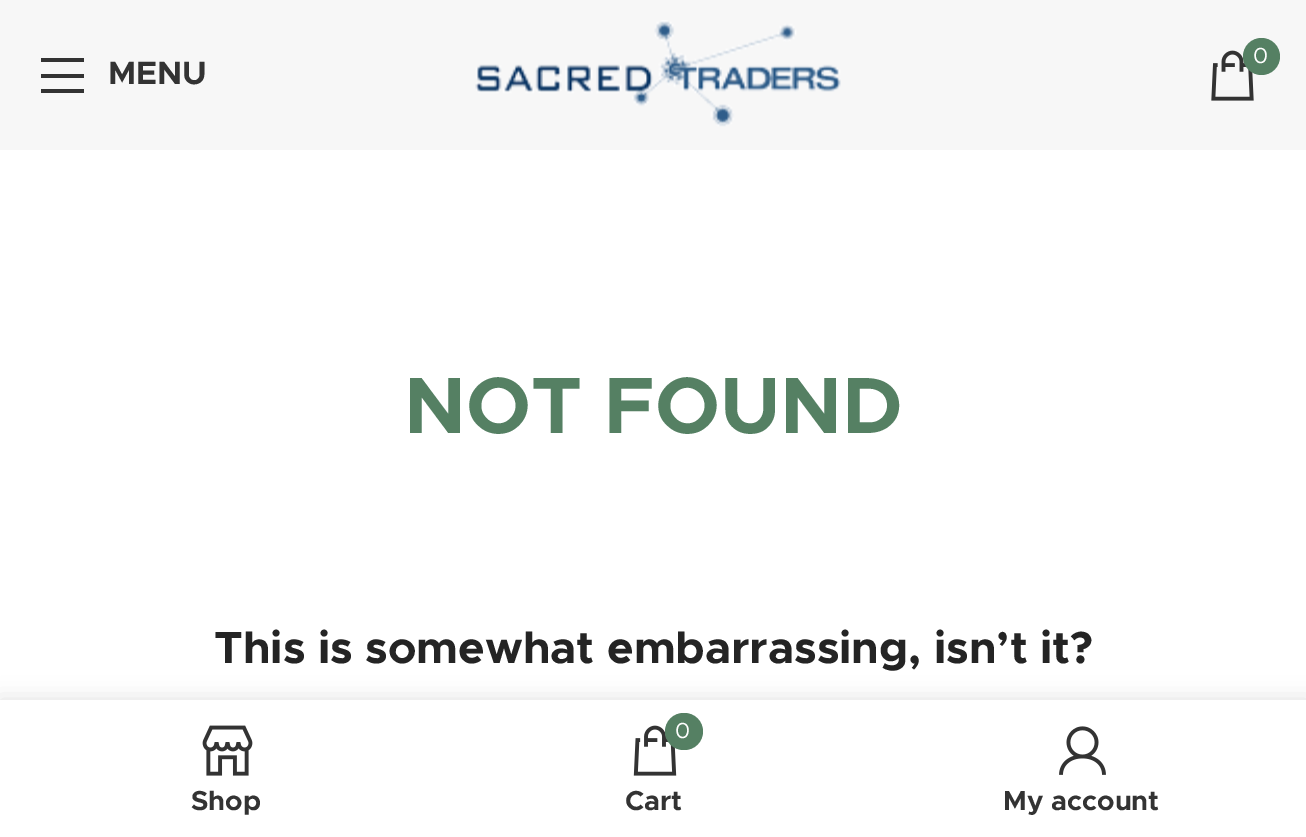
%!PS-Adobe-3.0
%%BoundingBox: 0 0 1306 837
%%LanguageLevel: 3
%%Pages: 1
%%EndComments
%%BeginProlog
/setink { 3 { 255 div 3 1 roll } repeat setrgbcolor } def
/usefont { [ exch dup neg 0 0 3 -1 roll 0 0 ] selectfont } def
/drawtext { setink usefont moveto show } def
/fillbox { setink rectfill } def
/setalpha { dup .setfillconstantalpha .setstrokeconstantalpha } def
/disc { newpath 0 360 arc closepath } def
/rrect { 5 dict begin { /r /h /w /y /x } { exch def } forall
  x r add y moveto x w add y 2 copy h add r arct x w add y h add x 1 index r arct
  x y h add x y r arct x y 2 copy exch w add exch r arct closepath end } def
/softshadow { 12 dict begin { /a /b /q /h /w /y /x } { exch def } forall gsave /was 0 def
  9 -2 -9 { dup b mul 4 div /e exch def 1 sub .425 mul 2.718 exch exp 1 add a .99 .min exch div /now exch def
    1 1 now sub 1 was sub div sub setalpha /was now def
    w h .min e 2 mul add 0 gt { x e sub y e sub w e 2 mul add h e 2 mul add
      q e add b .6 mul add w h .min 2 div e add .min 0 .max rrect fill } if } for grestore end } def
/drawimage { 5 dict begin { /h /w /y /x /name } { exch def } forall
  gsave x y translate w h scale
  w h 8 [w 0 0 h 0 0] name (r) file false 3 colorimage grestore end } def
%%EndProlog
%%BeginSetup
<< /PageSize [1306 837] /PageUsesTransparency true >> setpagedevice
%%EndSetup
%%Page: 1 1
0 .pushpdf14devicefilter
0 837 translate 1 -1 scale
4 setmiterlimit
0 0 1306 837 255 255 255 fillbox
0 0 1306 150 247 247 247 fillbox
(assets/img1.rgb) 475 20 366 107 drawimage
(assets/img2.rgb) 1211 50 43 51 drawimage
85 128 99 setink
1261.5 56.5 18.5 disc fill
(0) 1253 63 /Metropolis-Regular 22 255 255 255 drawtext
51 51 51 setink
41 62 moveto 84 62 lineto 84 58 lineto 41 58 lineto closepath 41 78 moveto 84 78 lineto 84 74 lineto 41 74 lineto closepath 41 93 moveto 84 93 lineto 84 89 lineto 41 89 lineto closepath fill
(MENU) 108 84 /Metropolis-Bold 32.5 51 51 51 drawtext
(NOT FOUND) 404 433 /Metropolis-Bold 80 85 128 99 drawtext
(This is somewhat embarrassing, isn’t it?) 214 663 /Metropolis-Bold 45 36 36 36 drawtext
0 0 0 setink
0 700 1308 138 0 11 0.12 softshadow
0 700 1306 137 255 255 255 fillbox
(assets/img3.rgb) 202 725 51 51 drawimage
(Shop) 191 810 /Metropolis-Bold 27.5 51 51 51 drawtext
(assets/img4.rgb) 633 725 44 51 drawimage
85 128 99 setink
665 713 38 37 18.5 rrect fill
(0) 675 738 /Metropolis-Regular 22 255 255 255 drawtext
(Cart) 625 810 /Metropolis-Bold 27.5 51 51 51 drawtext
(assets/img5.rgb) 1059 726 47 49 drawimage
(My account) 1003 810 /Metropolis-Bold 27.5 51 51 51 drawtext
.poppdf14devicefilter showpage
%%EOF
